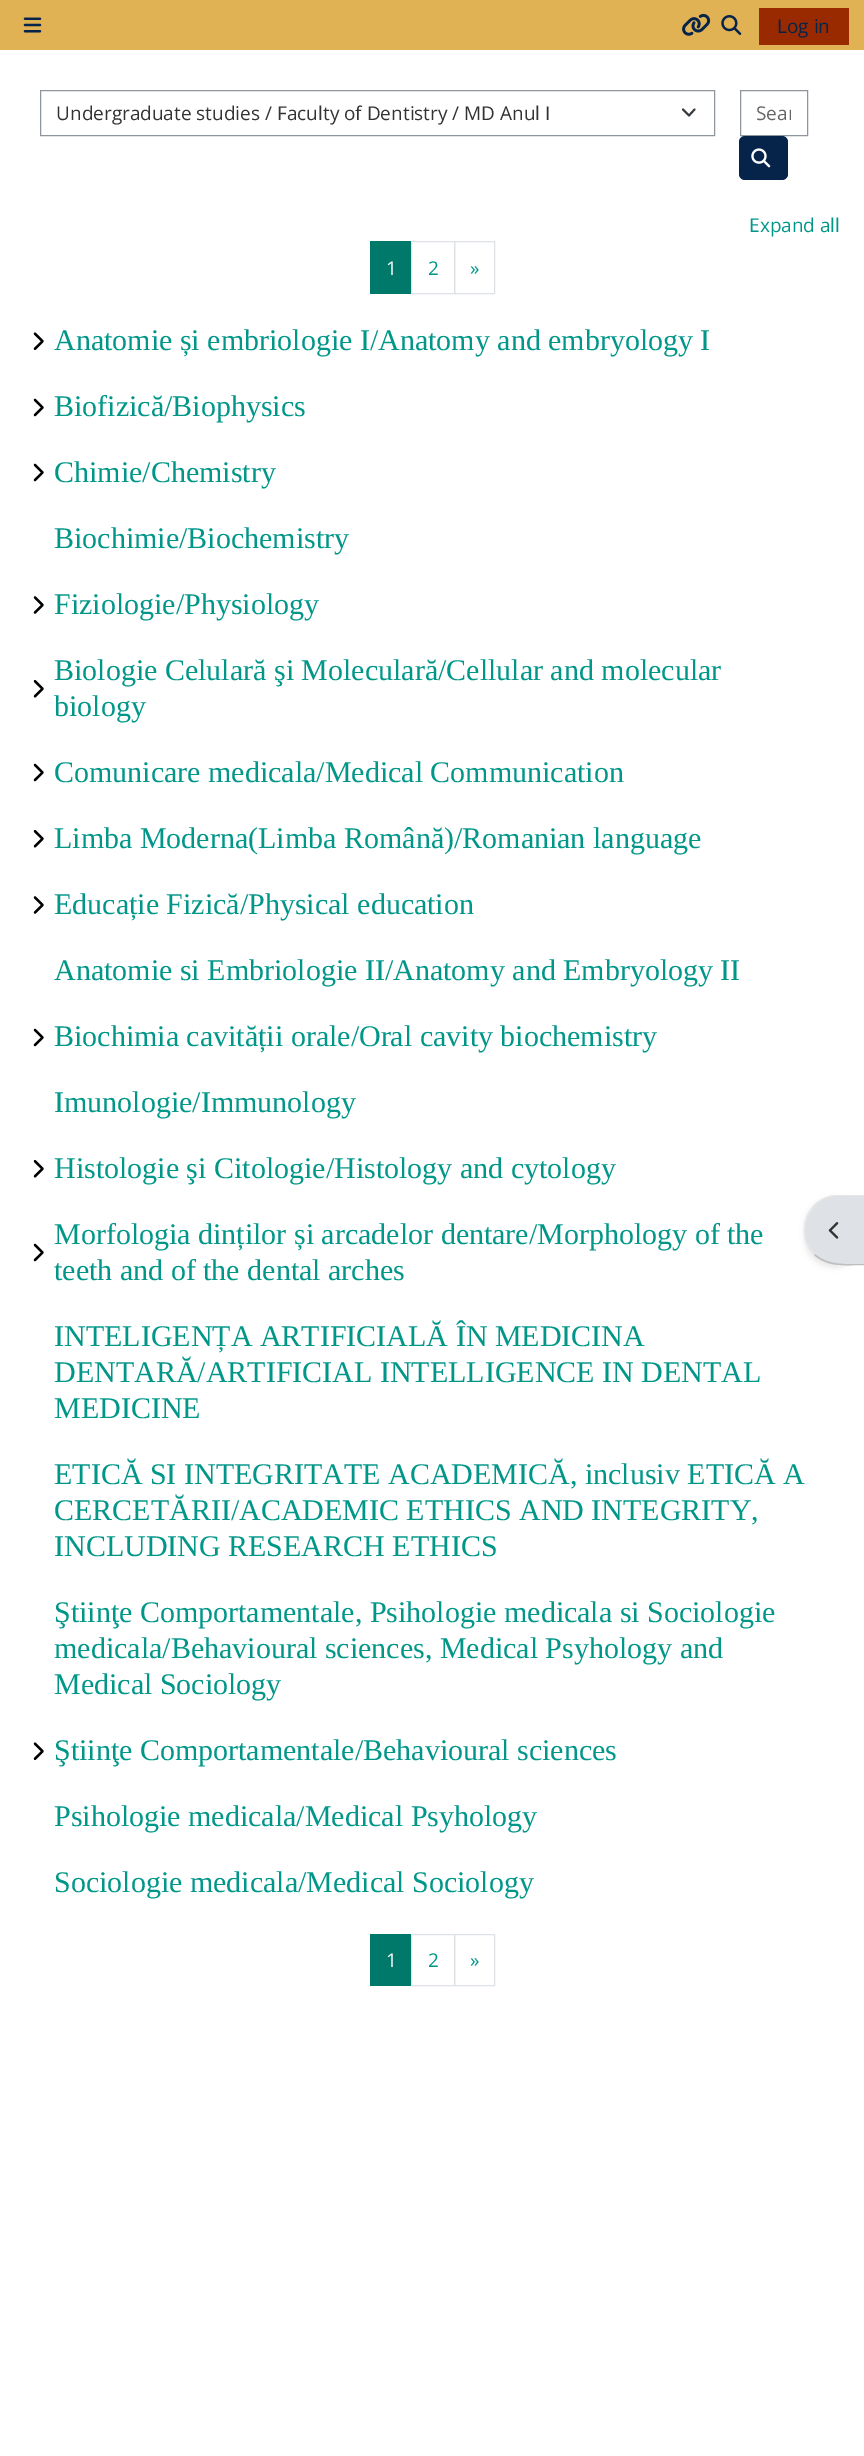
%!PS-Adobe-3.0
%%BoundingBox: 0 0 864 2456
%%LanguageLevel: 3
%%Pages: 1
%%EndComments
%%BeginProlog
/setink { 3 { 255 div 3 1 roll } repeat setrgbcolor } def
/usefont { [ exch dup neg 0 0 3 -1 roll 0 0 ] selectfont } def
/drawtext { setink usefont moveto show } def
/fillbox { setink rectfill } def
/setalpha { dup .setfillconstantalpha .setstrokeconstantalpha } def
/rrect { 5 dict begin { /r /h /w /y /x } { exch def } forall
  x r add y moveto x w add y 2 copy h add r arct x w add y h add x 1 index r arct
  x y h add x y r arct x y 2 copy exch w add exch r arct closepath end } def
/softshadow { 12 dict begin { /a /b /q /h /w /y /x } { exch def } forall gsave /was 0 def
  9 -2 -9 { dup b mul 4 div /e exch def 1 sub .425 mul 2.718 exch exp 1 add a .99 .min exch div /now exch def
    1 1 now sub 1 was sub div sub setalpha /was now def
    w h .min e 2 mul add 0 gt { x e sub y e sub w e 2 mul add h e 2 mul add
      q e add b .6 mul add w h .min 2 div e add .min 0 .max rrect fill } if } for grestore end } def
/drawimage { 5 dict begin { /h /w /y /x /name } { exch def } forall
  gsave x y translate w h scale
  w h 8 [w 0 0 h 0 0] name (r) file false 3 colorimage grestore end } def
%%EndProlog
%%BeginSetup
<< /PageSize [864 2456] /PageUsesTransparency true >> setpagedevice
%%EndSetup
%%Page: 1 1
0 .pushpdf14devicefilter
0 2456 translate 1 -1 scale
4 setmiterlimit
0 0 864 2456 255 255 255 fillbox
0 0 864 50 224 178 83 fillbox
(assets/img1.rgb) 23 17 19 16 drawimage
(assets/img2.rgb) 682 13 29 23 drawimage
(assets/img3.rgb) 721 15 21 20 drawimage
759 8 90 37 153 42 0 fillbox
(Log in) 777 33 /OpenSans-Regular 19 6 35 74 drawtext
52 58 64 setink
1.9 setlinewidth
1 setlinecap
1 setlinejoin
683 109.5 moveto 689 115.5 lineto 694.5 109.5 lineto stroke
143 149 158 setink
1 setlinewidth
0 setlinecap
0 setlinejoin
40.5 90.5 674 45 rectstroke
(Undergraduate studies / Faculty of Dentistry / MD Anul I) 56 120 /OpenSans-Regular 19 51 51 51 drawtext
143 149 158 setink
740.5 90.5 67 45 rectstroke
gsave
756 100 35 25 rectclip
(Sear) 756 120 /OpenSans-Regular 19 102 102 102 drawtext
grestore
6 35 74 setink
739 136 49 44 6 rrect fill
(assets/img4.rgb) 751 148 20 20 drawimage
(Expand all) 749 232 /OpenSans-Regular 19 0 150 136 drawtext
370 241 41 53 0 121 107 fillbox
(1) 386 275 /OpenSans-Regular 19 255 255 255 drawtext
222 226 230 setink
411.5 241.5 43 52 rectstroke
(2) 428 275 /OpenSans-Regular 19 0 150 136 drawtext
222 226 230 setink
454.5 241.5 40 52 rectstroke
(») 470 275 /OpenSans-Regular 19 0 150 136 drawtext
(assets/img5.rgb) 33 332 11 18 drawimage
(Anatomie și embriologie I/Anatomy and embryology I) 54 350 /LiberationSerif-Regular 30 0 150 136 drawtext
(assets/img6.rgb) 33 398 11 19 drawimage
(Biofizică/Biophysics) 54 416 /LiberationSerif-Regular 30 0 150 136 drawtext
(assets/img6.rgb) 33 463 11 19 drawimage
(Chimie/Chemistry) 54 482 /LiberationSerif-Regular 30 0 150 136 drawtext
(Biochimie/Biochemistry) 54 548 /LiberationSerif-Regular 30 0 150 136 drawtext
(assets/img7.rgb) 33 596 11 18 drawimage
(Fiziologie/Physiology) 54 614 /LiberationSerif-Regular 30 0 150 136 drawtext
(assets/img8.rgb) 33 680 11 18 drawimage
(Biologie Celulară şi Moleculară/Cellular and molecular) 54 680 /LiberationSerif-Regular 30 0 150 136 drawtext
(biology) 54 716 /LiberationSerif-Regular 30 0 150 136 drawtext
(assets/img6.rgb) 33 763 11 19 drawimage
(Comunicare medicala/Medical Communication) 54 782 /LiberationSerif-Regular 30 0 150 136 drawtext
(assets/img8.rgb) 33 830 11 18 drawimage
(Limba Moderna\(Limba Română\)/Romanian language) 54 848 /LiberationSerif-Regular 30 0 150 136 drawtext
(assets/img7.rgb) 33 896 11 18 drawimage
(Educație Fizică/Physical education) 54 914 /LiberationSerif-Regular 30 0 150 136 drawtext
(Anatomie si Embriologie II/Anatomy and Embryology II) 54 980 /LiberationSerif-Regular 30 0 150 136 drawtext
(assets/img6.rgb) 33 1028 11 19 drawimage
(Biochimia cavității orale/Oral cavity biochemistry) 54 1046 /LiberationSerif-Regular 30 0 150 136 drawtext
(Imunologie/Immunology) 54 1112 /LiberationSerif-Regular 30 0 150 136 drawtext
(assets/img8.rgb) 33 1160 11 18 drawimage
(Histologie şi Citologie/Histology and cytology) 54 1178 /LiberationSerif-Regular 30 0 150 136 drawtext
(assets/img6.rgb) 33 1243 11 19 drawimage
(Morfologia dinților și arcadelor dentare/Morphology of the) 54 1244 /LiberationSerif-Regular 30 0 150 136 drawtext
(teeth and of the dental arches) 54 1280 /LiberationSerif-Regular 30 0 150 136 drawtext
(INTELIGENȚA ARTIFICIALĂ ÎN MEDICINA) 54 1346 /LiberationSerif-Regular 30 0 150 136 drawtext
(DENTARĂ/ARTIFICIAL INTELLIGENCE IN DENTAL) 54 1382 /LiberationSerif-Regular 30 0 150 136 drawtext
(MEDICINE) 54 1418 /LiberationSerif-Regular 30 0 150 136 drawtext
(ETICĂ SI INTEGRITATE ACADEMICĂ, inclusiv ETICĂ A) 54 1484 /LiberationSerif-Regular 30 0 150 136 drawtext
(CERCETĂRII/ACADEMIC ETHICS AND INTEGRITY,) 54 1520 /LiberationSerif-Regular 30 0 150 136 drawtext
(INCLUDING RESEARCH ETHICS) 54 1556 /LiberationSerif-Regular 30 0 150 136 drawtext
(Ştiinţe Comportamentale, Psihologie medicala si Sociologie) 54 1622 /LiberationSerif-Regular 30 0 150 136 drawtext
(medicala/Behavioural sciences, Medical Psyhology and) 54 1658 /LiberationSerif-Regular 30 0 150 136 drawtext
(Medical Sociology) 54 1694 /LiberationSerif-Regular 30 0 150 136 drawtext
(assets/img5.rgb) 33 1742 11 18 drawimage
(Ştiinţe Comportamentale/Behavioural sciences) 54 1760 /LiberationSerif-Regular 30 0 150 136 drawtext
(Psihologie medicala/Medical Psyhology) 54 1826 /LiberationSerif-Regular 30 0 150 136 drawtext
(Sociologie medicala/Medical Sociology) 54 1892 /LiberationSerif-Regular 30 0 150 136 drawtext
370 1934 41 52 0 121 107 fillbox
(1) 386 1967 /OpenSans-Regular 19 255 255 255 drawtext
222 226 230 setink
411.5 1934.5 43 51 rectstroke
(2) 428 1967 /OpenSans-Regular 19 0 150 136 drawtext
222 226 230 setink
454.5 1934.5 40 51 rectstroke
(») 470 1967 /OpenSans-Regular 19 0 150 136 drawtext
0 0 0 setink
804 1198 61 70 35 2.5 0.07 softshadow
222 226 230 setink
839 1195 moveto 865 1195 lineto 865 1265 lineto 839 1265 lineto 819.5 1265 804 1249.5 804 1230 curveto 804 1210.5 819.5 1195 839 1195 curveto closepath fill
230 230 230 setink
839 1195 moveto 828 1195 820 1199 814 1205 curveto 815 1206 lineto 820 1200 829 1196 839 1196 curveto 864 1196 lineto 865 1195 lineto closepath fill
191 191 191 setink
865 1265 moveto 848 1265 828 1268 814 1255 curveto 815 1254 lineto 828 1266 847 1264 864 1264 curveto closepath fill
230 230 230 setink
814 1205 moveto 801 1219 800 1242 814 1255 curveto 815 1254 lineto 801 1241 803 1219 815 1206 curveto closepath fill
(assets/img9.rgb) 828 1222 11 17 drawimage
.poppdf14devicefilter showpage
%%EOF
